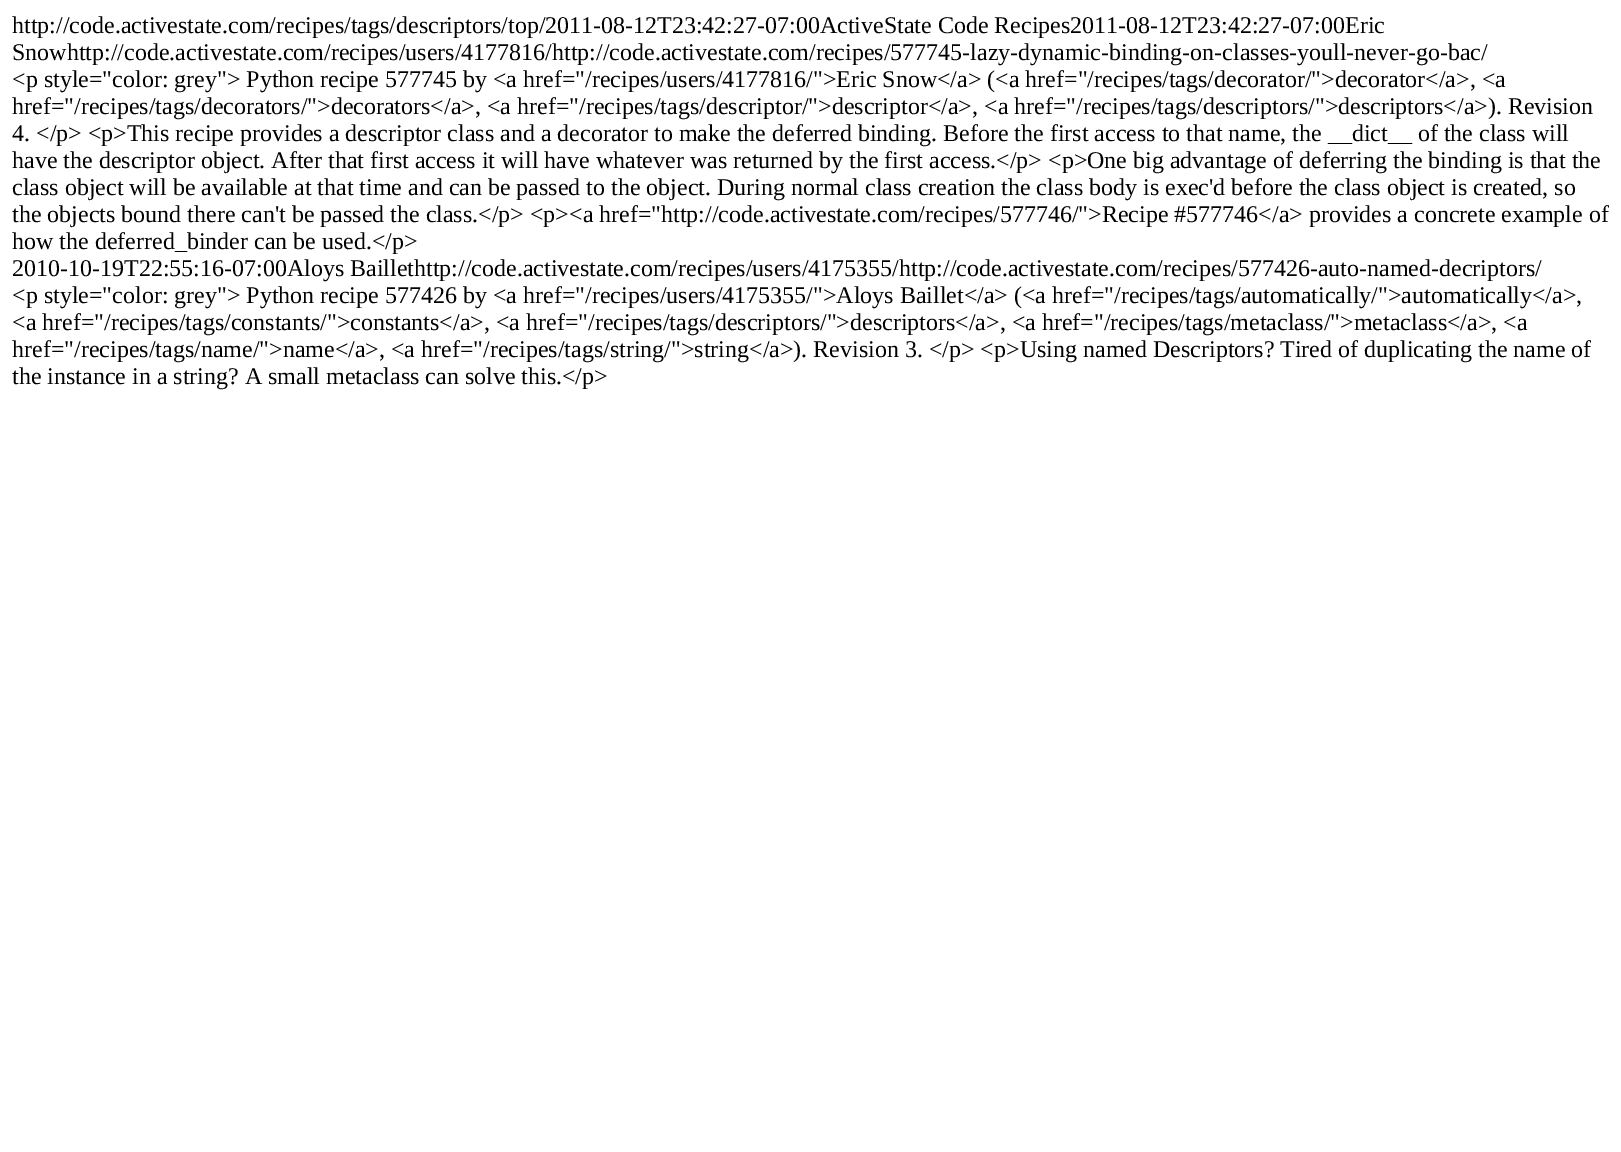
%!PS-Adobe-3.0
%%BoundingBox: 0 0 1621 1152
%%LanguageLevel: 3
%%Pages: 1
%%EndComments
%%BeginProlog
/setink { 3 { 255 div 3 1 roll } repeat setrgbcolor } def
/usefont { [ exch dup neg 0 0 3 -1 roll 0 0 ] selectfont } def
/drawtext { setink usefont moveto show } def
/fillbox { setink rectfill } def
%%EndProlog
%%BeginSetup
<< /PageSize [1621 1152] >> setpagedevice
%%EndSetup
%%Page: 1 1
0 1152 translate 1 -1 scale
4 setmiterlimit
0 0 1621 1152 255 255 255 fillbox
(http://code.activestate.com/recipes/tags/descriptors/top/2011-08-12T23:42:27-07:00ActiveState Code Recipes2011-08-12T23:42:27-07:00Eric) 12 33 /LiberationSerif-Regular 24 0 0 0 drawtext
(Snowhttp://code.activestate.com/recipes/users/4177816/http://code.activestate.com/recipes/577745-lazy-dynamic-binding-on-classes-youll-never-go-bac/) 12 60 /LiberationSerif-Regular 24 0 0 0 drawtext
(<p style="color: grey"> Python recipe 577745 by <a href="/recipes/users/4177816/">Eric Snow</a> \(<a href="/recipes/tags/decorator/">decorator</a>, <a) 12 87 /LiberationSerif-Regular 24 0 0 0 drawtext
(href="/recipes/tags/decorators/">decorators</a>, <a href="/recipes/tags/descriptor/">descriptor</a>, <a href="/recipes/tags/descriptors/">descriptors</a>\). Revision) 12 114 /LiberationSerif-Regular 24 0 0 0 drawtext
(4. </p> <p>This recipe provides a descriptor class and a decorator to make the deferred binding. Before the first access to that name, the __dict__ of the class will) 12 141 /LiberationSerif-Regular 24 0 0 0 drawtext
(have the descriptor object. After that first access it will have whatever was returned by the first access.</p> <p>One big advantage of deferring the binding is that the) 12 168 /LiberationSerif-Regular 24 0 0 0 drawtext
(class object will be available at that time and can be passed to the object. During normal class creation the class body is exec'd before the class object is created, so) 12 195 /LiberationSerif-Regular 24 0 0 0 drawtext
(the objects bound there can't be passed the class.</p> <p><a href="http://code.activestate.com/recipes/577746/">Recipe #577746</a> provides a concrete example of) 12 222 /LiberationSerif-Regular 24 0 0 0 drawtext
(how the deferred_binder can be used.</p>) 12 249 /LiberationSerif-Regular 24 0 0 0 drawtext
(2010-10-19T22:55:16-07:00Aloys Baillethttp://code.activestate.com/recipes/users/4175355/http://code.activestate.com/recipes/577426-auto-named-decriptors/) 12 276 /LiberationSerif-Regular 24 0 0 0 drawtext
(<p style="color: grey"> Python recipe 577426 by <a href="/recipes/users/4175355/">Aloys Baillet</a> \(<a href="/recipes/tags/automatically/">automatically</a>,) 12 303 /LiberationSerif-Regular 24 0 0 0 drawtext
(<a href="/recipes/tags/constants/">constants</a>, <a href="/recipes/tags/descriptors/">descriptors</a>, <a href="/recipes/tags/metaclass/">metaclass</a>, <a) 12 330 /LiberationSerif-Regular 24 0 0 0 drawtext
(href="/recipes/tags/name/">name</a>, <a href="/recipes/tags/string/">string</a>\). Revision 3. </p> <p>Using named Descriptors? Tired of duplicating the name of) 12 357 /LiberationSerif-Regular 24 0 0 0 drawtext
(the instance in a string? A small metaclass can solve this.</p>) 12 384 /LiberationSerif-Regular 24 0 0 0 drawtext
showpage
%%EOF
